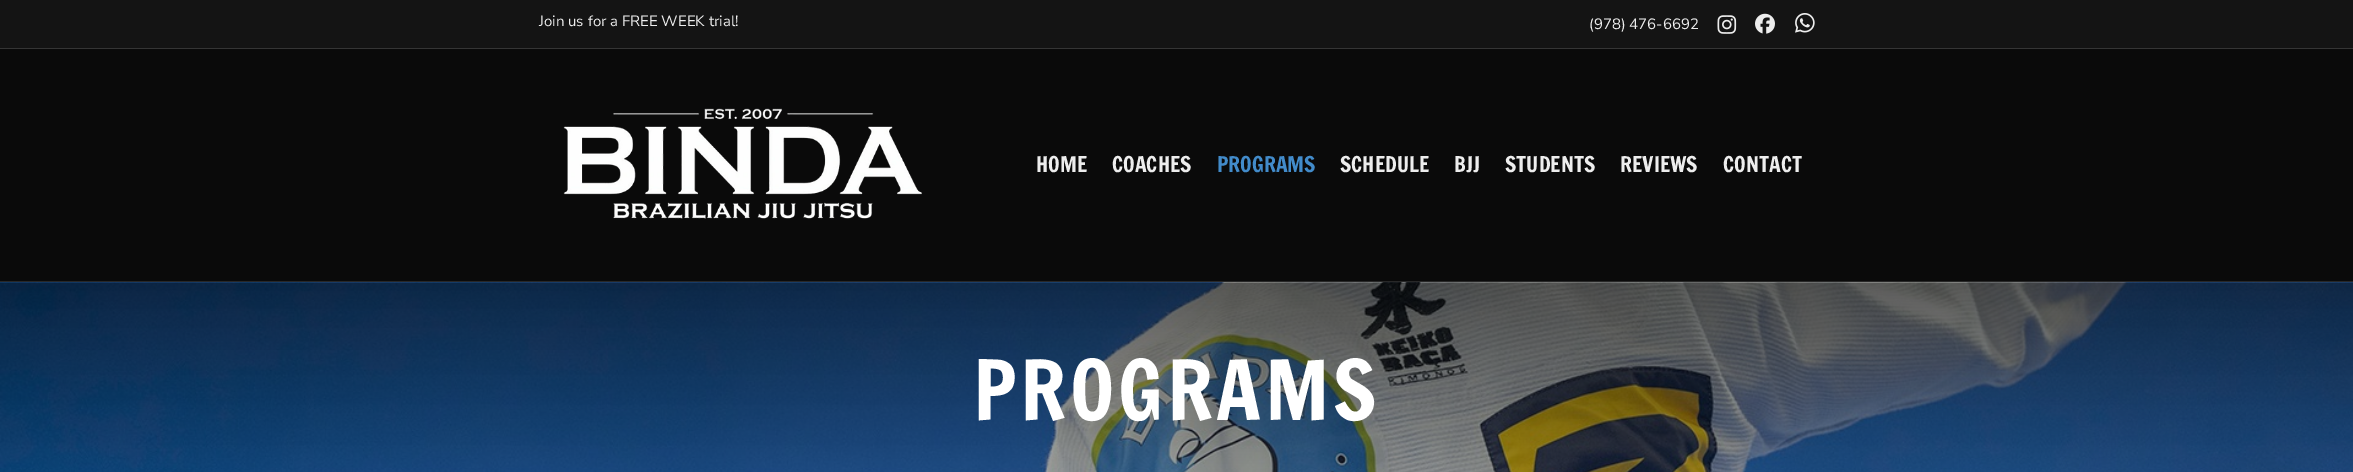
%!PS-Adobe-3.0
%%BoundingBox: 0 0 2353 472
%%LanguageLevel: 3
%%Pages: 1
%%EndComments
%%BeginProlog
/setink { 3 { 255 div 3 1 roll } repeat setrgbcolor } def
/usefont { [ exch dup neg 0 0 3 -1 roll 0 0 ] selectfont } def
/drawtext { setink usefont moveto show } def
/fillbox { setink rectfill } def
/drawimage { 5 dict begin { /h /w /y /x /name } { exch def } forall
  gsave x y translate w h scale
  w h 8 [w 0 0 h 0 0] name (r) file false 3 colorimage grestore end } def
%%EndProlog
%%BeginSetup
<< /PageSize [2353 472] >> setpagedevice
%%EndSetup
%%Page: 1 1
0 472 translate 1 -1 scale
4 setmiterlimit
0 0 2353 472 20 20 20 fillbox
0 48 2353 1 53 53 53 fillbox
(Join us for a FREE WEEK trial!) 539 26 /NunitoSans-Regular 15 237 237 237 drawtext
(\(978\) 476-6692) 1589 29 /NunitoSans-Regular 15 237 237 237 drawtext
(assets/img1.rgb) 1717 15 20 19 drawimage
(assets/img2.rgb) 1755 13 20 21 drawimage
(assets/img3.rgb) 1795 13 20 20 drawimage
0 49 2353 234 10 10 10 fillbox
0 281 2353 1 40 40 40 fillbox
(assets/img4.rgb) 563 108 359 111 drawimage
(HOME) 1036 172 /FrancoisOne-Regular 21.25 237 237 237 drawtext
(COACHES) 1112 172 /FrancoisOne-Regular 21.25 237 237 237 drawtext
(PROGRAMS) 1217 172 /FrancoisOne-Regular 21.25 66 139 202 drawtext
(SCHEDULE) 1340 172 /FrancoisOne-Regular 21.25 237 237 237 drawtext
(BJJ) 1454 172 /FrancoisOne-Regular 21.25 237 237 237 drawtext
(STUDENTS) 1505 172 /FrancoisOne-Regular 21.25 237 237 237 drawtext
(REVIEWS) 1620 172 /FrancoisOne-Regular 21.25 237 237 237 drawtext
(CONTACT) 1723 172 /FrancoisOne-Regular 21.25 237 237 237 drawtext
(assets/img5.rgb) 0 282 2353 190 drawimage
/FrancoisOne-Regular 81.25 usefont
255 255 255 setink
973 420 moveto 3.75 0 (PROGRAMS) ashow
showpage
%%EOF
